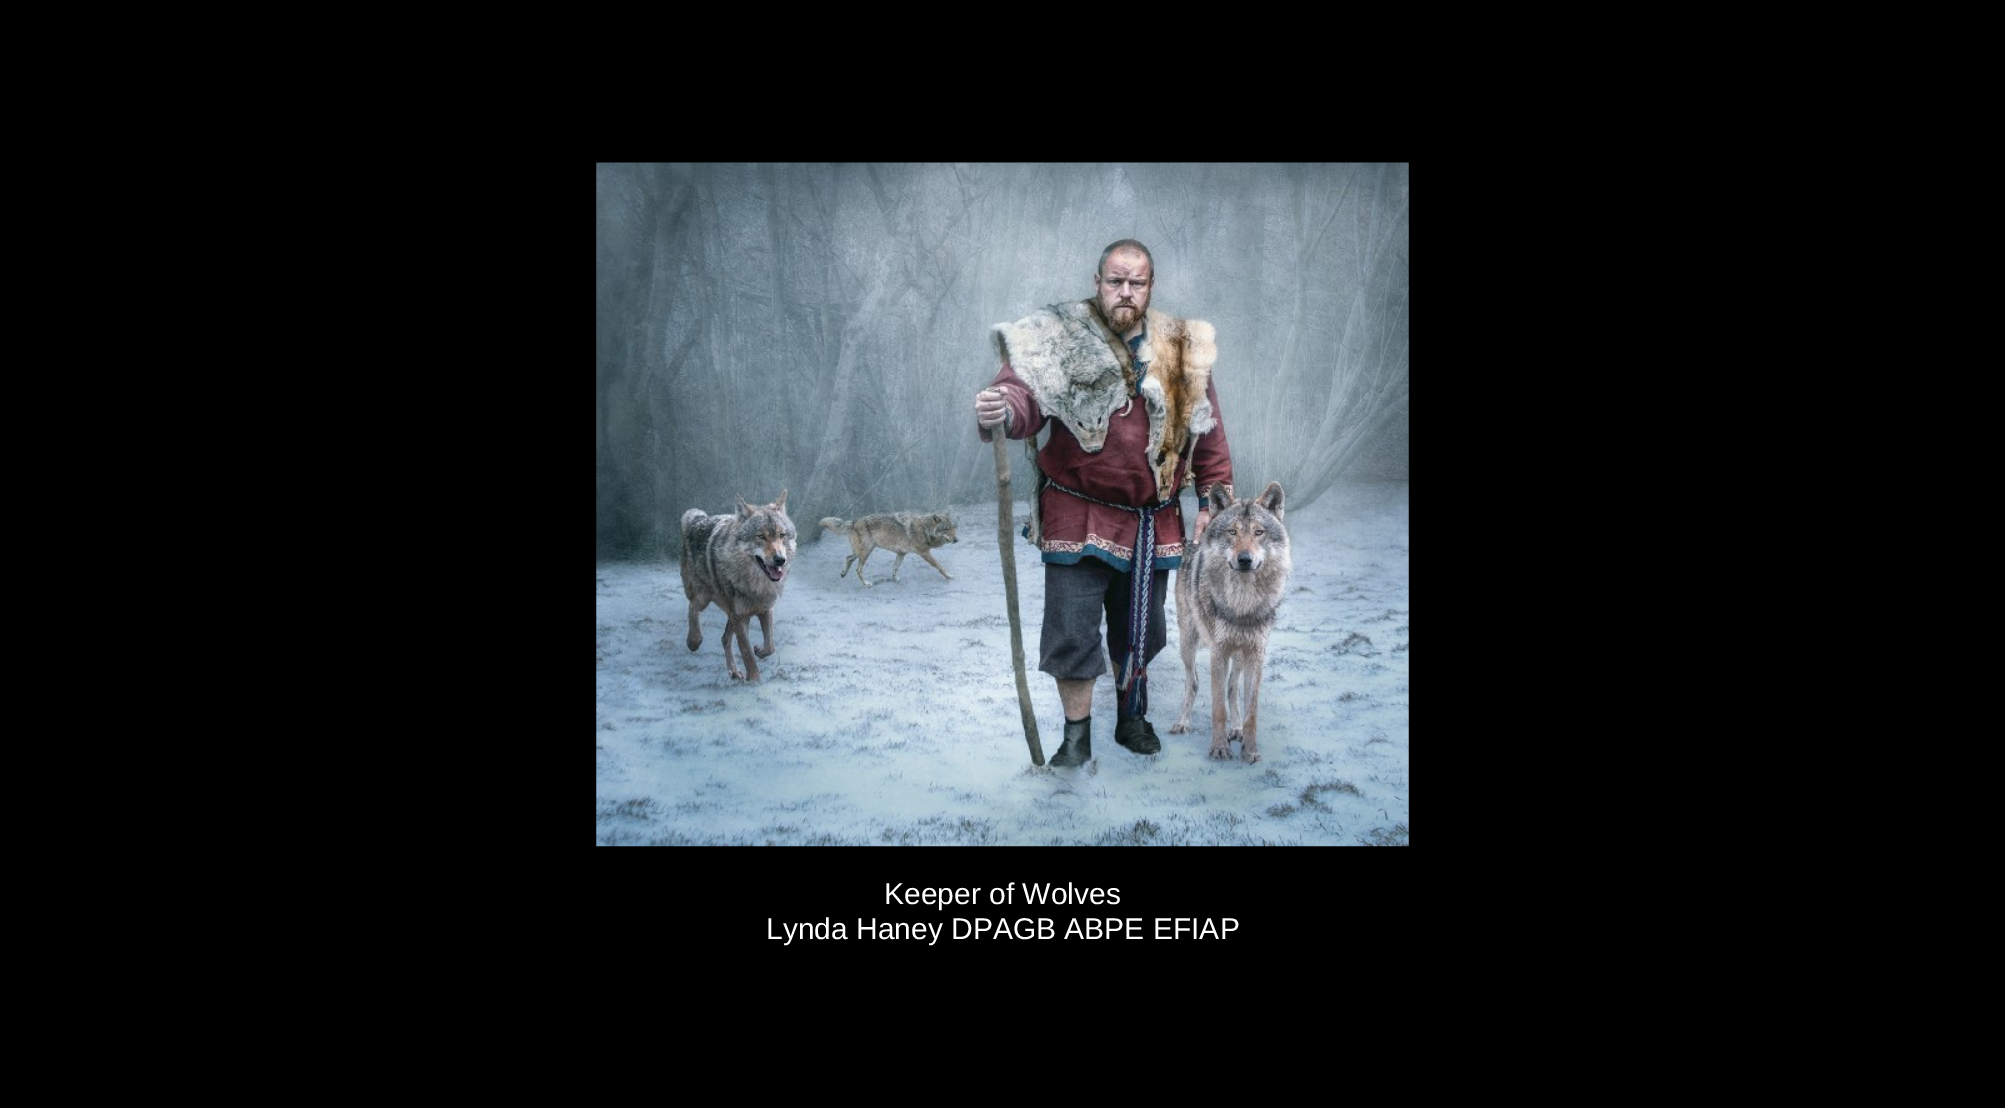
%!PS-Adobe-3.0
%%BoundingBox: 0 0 2005 1108
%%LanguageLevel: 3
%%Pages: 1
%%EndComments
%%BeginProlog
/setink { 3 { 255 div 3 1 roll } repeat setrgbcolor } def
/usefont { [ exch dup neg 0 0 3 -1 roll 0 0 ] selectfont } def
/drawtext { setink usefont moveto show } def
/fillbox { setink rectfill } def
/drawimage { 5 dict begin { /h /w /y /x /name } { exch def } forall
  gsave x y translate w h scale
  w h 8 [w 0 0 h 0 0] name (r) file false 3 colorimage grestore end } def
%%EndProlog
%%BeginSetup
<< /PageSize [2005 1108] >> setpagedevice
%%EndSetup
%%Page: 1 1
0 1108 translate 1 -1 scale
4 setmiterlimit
0 0 2005 1108 0 0 0 fillbox
(assets/img1.rgb) 596 162 813 685 drawimage
(Keeper of Wolves) 884 904 /LiberationSans-Regular 30 255 255 255 drawtext
(Lynda Haney DPAGB ABPE EFIAP) 766 939 /LiberationSans-Regular 30 255 255 255 drawtext
showpage
%%EOF
